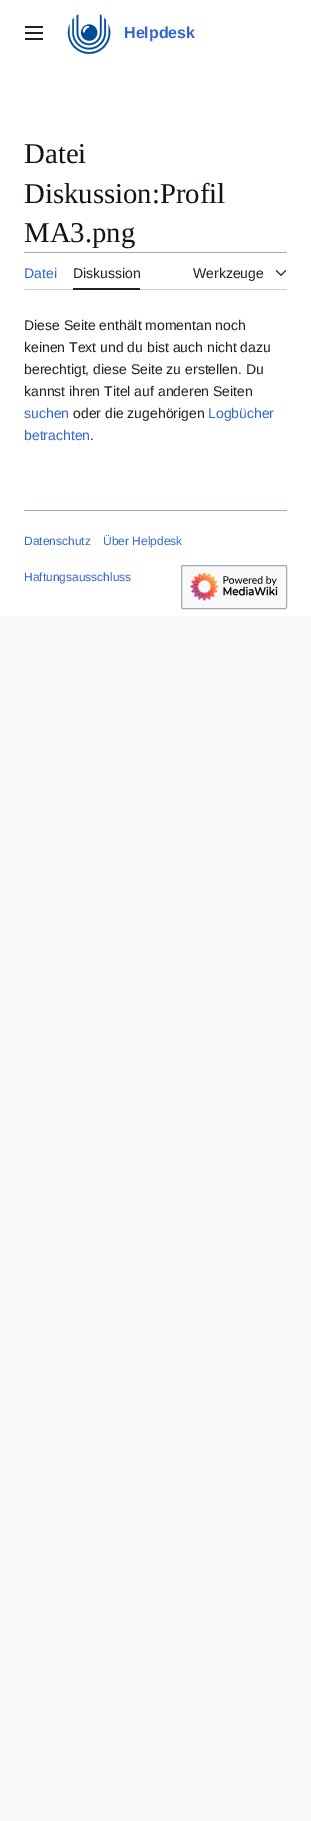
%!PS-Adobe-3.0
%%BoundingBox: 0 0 311 1821
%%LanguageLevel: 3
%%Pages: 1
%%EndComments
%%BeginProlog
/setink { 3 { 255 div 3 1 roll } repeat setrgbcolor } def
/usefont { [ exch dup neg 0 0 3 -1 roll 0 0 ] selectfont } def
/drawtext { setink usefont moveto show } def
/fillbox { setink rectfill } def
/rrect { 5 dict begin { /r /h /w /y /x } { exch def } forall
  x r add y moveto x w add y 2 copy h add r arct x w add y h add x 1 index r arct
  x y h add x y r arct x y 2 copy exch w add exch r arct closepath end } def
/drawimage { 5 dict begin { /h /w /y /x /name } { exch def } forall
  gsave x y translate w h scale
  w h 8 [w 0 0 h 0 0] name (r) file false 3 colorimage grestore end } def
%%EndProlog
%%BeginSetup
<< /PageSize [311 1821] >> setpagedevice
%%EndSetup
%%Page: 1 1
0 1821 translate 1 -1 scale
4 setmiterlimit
0 0 311 1821 248 249 250 fillbox
0 0 311 617 255 255 255 fillbox
(assets/img1.rgb) 25 26 18 14 drawimage
(assets/img2.rgb) 67 14 44 40 drawimage
(Helpdesk) 124 38 /LiberationSans-Bold 16 51 102 204 drawtext
(Datei) 24 163 /LiberationSerif-Regular 28.75 16 20 24 drawtext
(Diskussion:Profil) 24 203 /LiberationSerif-Regular 28.75 16 20 24 drawtext
(MA3.png) 24 242 /LiberationSerif-Regular 28.75 16 20 24 drawtext
24 252 263 1 162 169 177 fillbox
24 289 263 1 200 204 209 fillbox
(Datei) 24 278 /LiberationSans-Regular 14 51 102 204 drawtext
73 288 67 2 32 33 34 fillbox
(Diskussion) 73 278 /LiberationSans-Regular 14 32 33 34 drawtext
(Werkzeuge) 193 278 /LiberationSans-Regular 14 32 33 34 drawtext
(assets/img3.rgb) 275 270 12 6 drawimage
(Diese Seite enthält momentan noch) 24 330 /LiberationSans-Regular 14 32 33 34 drawtext
(keinen Text und du bist auch nicht dazu) 24 352 /LiberationSans-Regular 14 32 33 34 drawtext
(berechtigt, diese Seite zu erstellen. Du) 24 374 /LiberationSans-Regular 14 32 33 34 drawtext
(kannst ihren Titel auf anderen Seiten) 24 396 /LiberationSans-Regular 14 32 33 34 drawtext
(suchen) 24 418 /LiberationSans-Regular 14 51 102 204 drawtext
(oder die zugehörigen) 73 418 /LiberationSans-Regular 14 32 33 34 drawtext
(Logbücher) 208 418 /LiberationSans-Regular 14 51 102 204 drawtext
(betrachten) 24 440 /LiberationSans-Regular 14 51 102 204 drawtext
(.) 90 440 /LiberationSans-Regular 14 32 33 34 drawtext
24 510 263 1 162 169 177 fillbox
(Datenschutz) 24 545 /LiberationSans-Regular 12 51 102 204 drawtext
(Über Helpdesk) 103 545 /LiberationSans-Regular 12 51 102 204 drawtext
(Haftungsausschluss) 24 581 /LiberationSans-Regular 12 51 102 204 drawtext
248 249 250 setink
181.5 565.5 105 43 1.5 rrect gsave fill grestore
162 169 177 setink
stroke
(assets/img4.rgb) 190 572 88 29 drawimage
showpage
%%EOF
